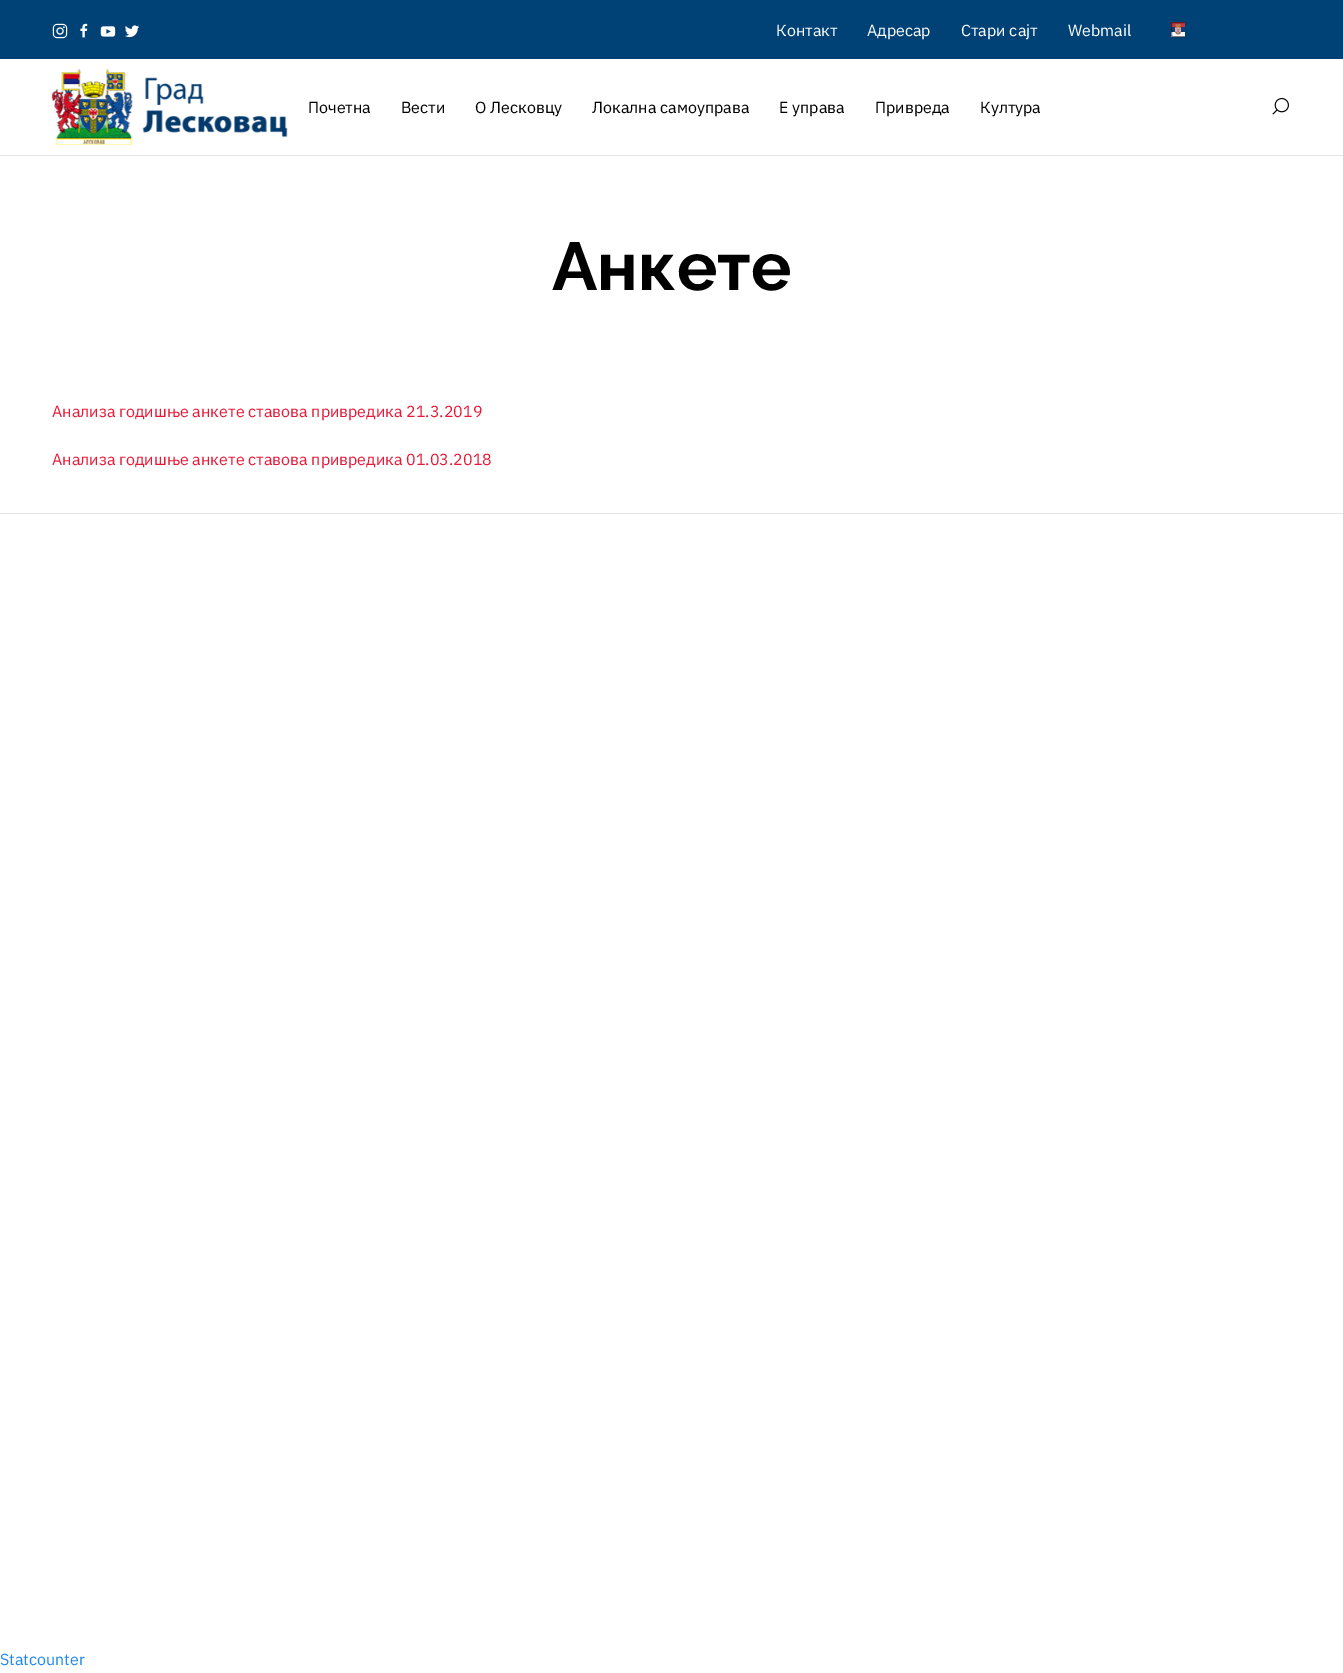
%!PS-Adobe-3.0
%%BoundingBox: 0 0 1343 1673
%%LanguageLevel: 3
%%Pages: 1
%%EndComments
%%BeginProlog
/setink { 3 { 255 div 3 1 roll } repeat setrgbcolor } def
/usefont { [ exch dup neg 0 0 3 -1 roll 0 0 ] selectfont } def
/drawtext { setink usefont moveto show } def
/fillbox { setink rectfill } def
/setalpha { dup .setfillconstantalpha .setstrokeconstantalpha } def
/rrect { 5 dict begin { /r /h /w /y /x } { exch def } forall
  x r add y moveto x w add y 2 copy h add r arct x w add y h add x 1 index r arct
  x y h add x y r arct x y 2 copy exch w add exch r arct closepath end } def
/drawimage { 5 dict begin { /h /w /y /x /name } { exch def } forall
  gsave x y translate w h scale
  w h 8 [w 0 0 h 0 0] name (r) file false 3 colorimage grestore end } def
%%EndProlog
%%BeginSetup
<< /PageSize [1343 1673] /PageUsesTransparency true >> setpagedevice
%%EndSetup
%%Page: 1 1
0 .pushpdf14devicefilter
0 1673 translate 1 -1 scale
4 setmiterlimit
0 0 1343 1673 255 255 255 fillbox
0 0 1343 59 0 66 118 fillbox
(assets/img1.rgb) 52 23 16 16 drawimage
(assets/img2.rgb) 80 23 8 15 drawimage
(assets/img3.rgb) 100 26 16 11 drawimage
(assets/img4.rgb) 125 25 14 13 drawimage
(Контакт) 776 36 /IBMPlexSans-Regular 16 255 255 255 drawtext
(Адресар) 867 36 /IBMPlexSans-Regular 16 255 255 255 drawtext
(Стари сајт) 961 36 /IBMPlexSans-Regular 16 255 255 255 drawtext
(Webmail) 1068 36 /IBMPlexSans-Regular 16 255 255 255 drawtext
(assets/img5.rgb) 1171 22 14 15 drawimage
gsave
1161 12 24 35 rectclip
0.5 setalpha
0 0 0 setink
1171.5 22.5 19 14 1.5 rrect stroke
grestore
0 155 1343 1 229 229 229 fillbox
(assets/img6.rgb) 51 69 237 76 drawimage
(Почетна) 308 113 /IBMPlexSans-Regular 16 0 0 0 drawtext
(Вести) 401 113 /IBMPlexSans-Regular 16 0 0 0 drawtext
(О Лесковцу) 475 113 /IBMPlexSans-Regular 16 0 0 0 drawtext
(Локална самоуправа) 592 113 /IBMPlexSans-Regular 16 0 0 0 drawtext
(Е управа) 779 113 /IBMPlexSans-Regular 16 0 0 0 drawtext
(Привреда) 875 113 /IBMPlexSans-Regular 16 0 0 0 drawtext
(Култура) 980 113 /IBMPlexSans-Regular 16 0 0 0 drawtext
(assets/img7.rgb) 1272 98 17 17 drawimage
(Анкете) 552 290 /Raleway-Thin 67.5 0 0 0 drawtext
(Анализа годишње анкете ставова привредика 21.3.2019) 52 417 /IBMPlexSans-Regular 16 230 25 55 drawtext
(Анализа годишње анкете ставова привредика 01.03.2018) 52 465 /IBMPlexSans-Regular 16 230 25 55 drawtext
0 513 1343 1 229 229 229 fillbox
(Statcounter) 0 1665 /IBMPlexSans-Regular 16 30 135 240 drawtext
.poppdf14devicefilter showpage
%%EOF
